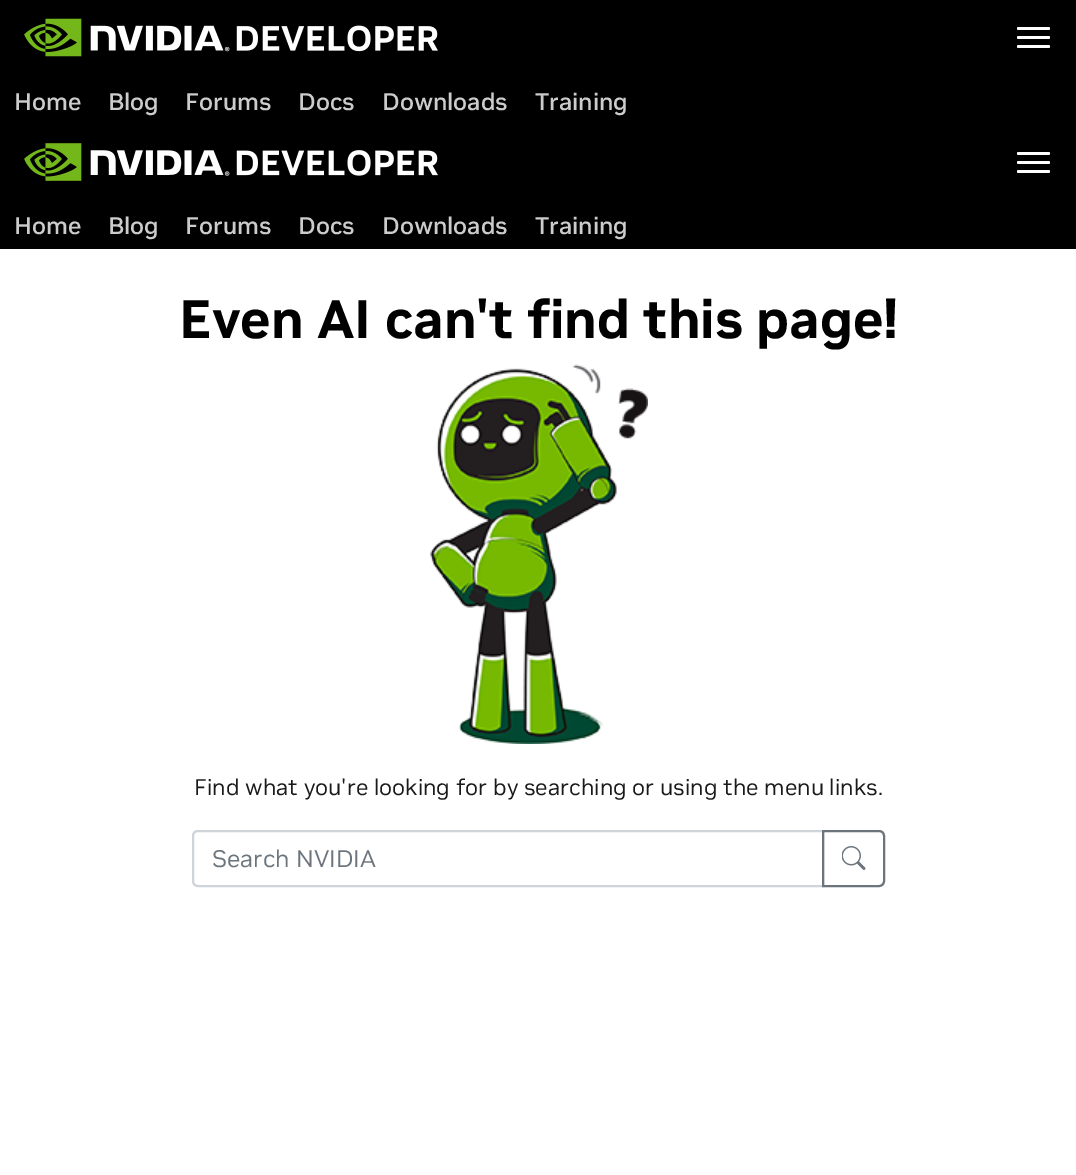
%!PS-Adobe-3.0
%%BoundingBox: 0 0 1076 1175
%%LanguageLevel: 3
%%Pages: 1
%%EndComments
%%BeginProlog
/setink { 3 { 255 div 3 1 roll } repeat setrgbcolor } def
/usefont { [ exch dup neg 0 0 3 -1 roll 0 0 ] selectfont } def
/drawtext { setink usefont moveto show } def
/fillbox { setink rectfill } def
/rrect { 5 dict begin { /r /h /w /y /x } { exch def } forall
  x r add y moveto x w add y 2 copy h add r arct x w add y h add x 1 index r arct
  x y h add x y r arct x y 2 copy exch w add exch r arct closepath end } def
/drawimage { 5 dict begin { /h /w /y /x /name } { exch def } forall
  gsave x y translate w h scale
  w h 8 [w 0 0 h 0 0] name (r) file false 3 colorimage grestore end } def
%%EndProlog
%%BeginSetup
<< /PageSize [1076 1175] >> setpagedevice
%%EndSetup
%%Page: 1 1
0 1175 translate 1 -1 scale
4 setmiterlimit
0 0 1076 1175 255 255 255 fillbox
0 0 1076 249 0 0 0 fillbox
255 255 255 setink
1017 27 33 3 1.5 rrect fill
1017 36 33 3 1.5 rrect fill
1017 45 33 3 1.5 rrect fill
(assets/img1.rgb) 24 18 414 39 drawimage
(Home) 14 110 /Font-Medium 24 204 204 204 drawtext
(Blog) 108 110 /Font-Medium 24 204 204 204 drawtext
(Forums) 185 110 /Font-Medium 24 204 204 204 drawtext
(Docs) 298 110 /Font-Medium 24 204 204 204 drawtext
(Downloads) 382 110 /Font-Medium 24 204 204 204 drawtext
(Training) 535 110 /Font-Medium 24 204 204 204 drawtext
255 255 255 setink
1017 152 33 3 1.5 rrect fill
1017 161 33 3 1.5 rrect fill
1017 170 33 3 1.5 rrect fill
(assets/img2.rgb) 24 143 414 38 drawimage
(Home) 14 234 /Font-Medium 24 204 204 204 drawtext
(Blog) 108 234 /Font-Medium 24 204 204 204 drawtext
(Forums) 185 234 /Font-Medium 24 204 204 204 drawtext
(Docs) 298 234 /Font-Medium 24 204 204 204 drawtext
(Downloads) 382 234 /Font-Medium 24 204 204 204 drawtext
(Training) 535 234 /Font-Medium 24 204 204 204 drawtext
(Even AI can't find this page!) 179 338 /Font-Bold 54 0 0 0 drawtext
(assets/img3.rgb) 430 364 218 380 drawimage
(Find what you're looking for by searching or using the menu links.) 194 795 /Font-Regular 22.5 26 26 26 drawtext
206 212 218 setink
2 setlinewidth
198 831 moveto 823 831 lineto 823 886 lineto 198 886 lineto 195 886 193 884 193 881 curveto 193 836 lineto 193 833 195 831 198 831 curveto closepath stroke
(Search NVIDIA) 212 867 /Font-Regular 24 108 117 125 drawtext
823 831 moveto 879 831 lineto 882 831 884 833 884 836 curveto 884 881 lineto 884 884 882 886 879 886 curveto 823 886 lineto closepath stroke
(assets/img4.rgb) 842 846 24 24 drawimage
showpage
%%EOF
